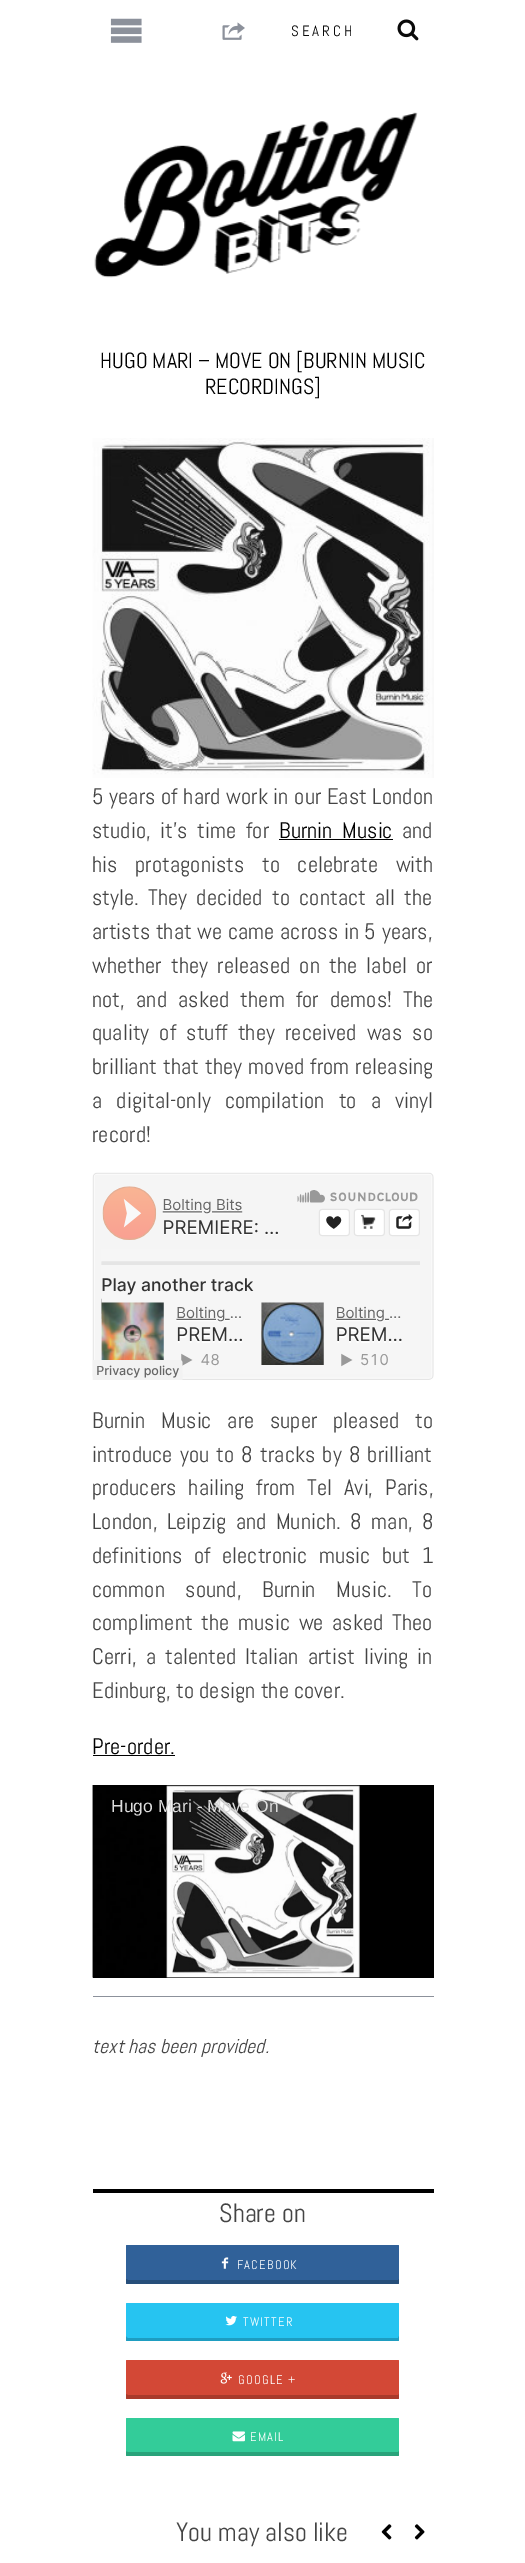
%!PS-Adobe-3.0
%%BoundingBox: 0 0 525 2563
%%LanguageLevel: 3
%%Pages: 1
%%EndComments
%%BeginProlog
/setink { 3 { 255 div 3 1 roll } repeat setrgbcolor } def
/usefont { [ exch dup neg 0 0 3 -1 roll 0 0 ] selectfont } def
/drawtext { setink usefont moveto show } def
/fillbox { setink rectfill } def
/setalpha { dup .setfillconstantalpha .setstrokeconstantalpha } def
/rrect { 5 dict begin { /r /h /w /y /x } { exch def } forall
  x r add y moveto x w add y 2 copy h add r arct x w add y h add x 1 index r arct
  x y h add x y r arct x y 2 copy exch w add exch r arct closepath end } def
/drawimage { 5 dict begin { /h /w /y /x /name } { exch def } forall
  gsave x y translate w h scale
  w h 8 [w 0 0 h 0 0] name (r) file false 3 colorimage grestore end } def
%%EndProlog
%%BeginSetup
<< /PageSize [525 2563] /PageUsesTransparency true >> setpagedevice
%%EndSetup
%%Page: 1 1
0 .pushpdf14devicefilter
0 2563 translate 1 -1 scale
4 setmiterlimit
0 0 525 2563 255 255 255 fillbox
(assets/img1.rgb) 110 18 32 25 drawimage
(assets/img2.rgb) 222 22 23 18 drawimage
/Abel-Regular 15 usefont
10 10 10 setink
291 36 moveto 3 0 (SEARCH) ashow
(assets/img3.rgb) 397 19 22 22 drawimage
(assets/img4.rgb) 94 112 324 166 drawimage
(HUGO MARI – MOVE ON [BURNIN MUSIC) 100 368 /Abel-Regular 21.9 0 0 0 drawtext
(RECORDINGS]) 205 394 /Abel-Regular 21.9 0 0 0 drawtext
(assets/img5.rgb) 92 438 342 340 drawimage
/Abel-Regular 22.5 usefont
68 68 68 setink
92 804 moveto 0.5 0 32 (5 years of hard work in our East London) widthshow
92 838 moveto 4.5 0 32 (studio, it’s time for) widthshow
0 0 0 setink
279 838 moveto 4.5 0 32 (Burnin Music) widthshow
279 839 114 1 0 0 0 fillbox
(and) 402 838 /Abel-Regular 22.5 68 68 68 drawtext
92 872 moveto 12.5 0 32 (his protagonists to celebrate with) widthshow
92 905 moveto 4 0 32 (style. They decided to contact all the) widthshow
92 939 moveto 0.5 0 32 (artists that we came across in 5 years,) widthshow
92 973 moveto 4 0 32 (whether they released on the label or) widthshow
92 1007 moveto 6 0 32 (not, and asked them for demos! The) widthshow
92 1040 moveto 5 0 32 (quality of stuff they received was so) widthshow
92 1074 moveto 1 0 32 (brilliant that they moved from releasing) widthshow
92 1108 moveto 9 0 32 (a digital-only compilation to a vinyl) widthshow
(record!) 92 1142 /Abel-Regular 22.5 68 68 68 drawtext
(assets/img6.rgb) 92 1172 342 208 drawimage
92 1428 moveto 10.5 0 32 (Burnin Music are super pleased to) widthshow
92 1462 moveto 2 0 32 (introduce you to 8 tracks by 8 brilliant) widthshow
92 1495 moveto 6.75 0 32 (producers hailing from Tel Avi, Paris,) widthshow
92 1529 moveto 4.25 0 32 (London, Leipzig and Munich. 8 man, 8) widthshow
92 1563 moveto 6.25 0 32 (definitions of electronic music but 1) widthshow
92 1597 moveto 15.5 0 32 (common sound, Burnin Music. To) widthshow
92 1630 moveto 3.5 0 32 (compliment the music we asked Theo) widthshow
92 1664 moveto 3.75 0 32 (Cerri, a talented Italian artist living in) widthshow
(Edinburg, to design the cover.) 92 1698 /Abel-Regular 22.5 68 68 68 drawtext
(Pre-order.) 92 1754 /Abel-Regular 22.5 0 0 0 drawtext
93 1755 82 1 0 0 0 fillbox
93 1785 341 193 0 0 0 fillbox
(assets/img7.rgb) 92 1785 268 193 drawimage
(Hugo Mari - Move On) 111 1812 /LiberationSans-Regular 17.5 220 220 220 drawtext
93 1996 341 1 140 145 155 fillbox
(text has been provided.) 92 2053 /Abel-Italic 20 68 68 68 drawtext
93 2189 341 4 0 0 0 fillbox
(Share on) 219 2222 /Abel-Regular 26.25 68 68 68 drawtext
48 97 153 setink
126 2245 273 39 1 rrect fill
0.2 setalpha
0 0 0 setink
126 2279 moveto 126 2283 lineto 126 2284 126 2284 127 2284 curveto 398 2284 lineto 399 2284 399 2284 399 2283 curveto 399 2279 lineto 398 2280 lineto 128 2280 lineto closepath fill
1 setalpha
(assets/img8.rgb) 221 2257 8 12 drawimage
/Abel-Regular 12.5 usefont
255 255 255 setink
237 2269 moveto 1.25 0 (FACEBOOK) ashow
38 196 241 setink
126 2303 273 38 1 rrect fill
0.2 setalpha
0 0 0 setink
126 2336 moveto 126 2340 lineto 126 2341 126 2341 127 2341 curveto 398 2341 lineto 399 2341 399 2341 399 2340 curveto 399 2336 lineto 398 2338 lineto 128 2338 lineto 127 2338 126 2337 126 2336 curveto closepath fill
1 setalpha
(assets/img9.rgb) 225 2316 12 10 drawimage
255 255 255 setink
243 2326 moveto 1.25 0 (TWITTER) ashow
211 72 54 setink
126 2360 273 39 1 rrect fill
0.2 setalpha
0 0 0 setink
126 2394 moveto 126 2398 lineto 126 2399 126 2399 127 2399 curveto 398 2399 lineto 399 2399 399 2399 399 2398 curveto 399 2394 lineto 398 2395 lineto 128 2395 lineto closepath fill
1 setalpha
(assets/img10.rgb) 220 2372 12 12 drawimage
255 255 255 setink
238 2384 moveto 1.25 0 (GOOGLE +) ashow
51 204 153 setink
126 2418 273 38 1 rrect fill
0.2 setalpha
0 0 0 setink
126 2451 moveto 126 2455 lineto 126 2456 126 2456 127 2456 curveto 398 2456 lineto 399 2456 399 2456 399 2455 curveto 399 2451 lineto 398 2452 lineto 128 2452 lineto 127 2452 126 2452 126 2451 curveto closepath fill
1 setalpha
(assets/img11.rgb) 232 2431 13 11 drawimage
255 255 255 setink
250 2441 moveto 1.25 0 (EMAIL) ashow
(You may also like) 176 2541 /Abel-Regular 26.25 68 68 68 drawtext
(assets/img12.rgb) 381 2524 11 16 drawimage
(assets/img13.rgb) 414 2524 11 16 drawimage
.poppdf14devicefilter showpage
%%EOF
